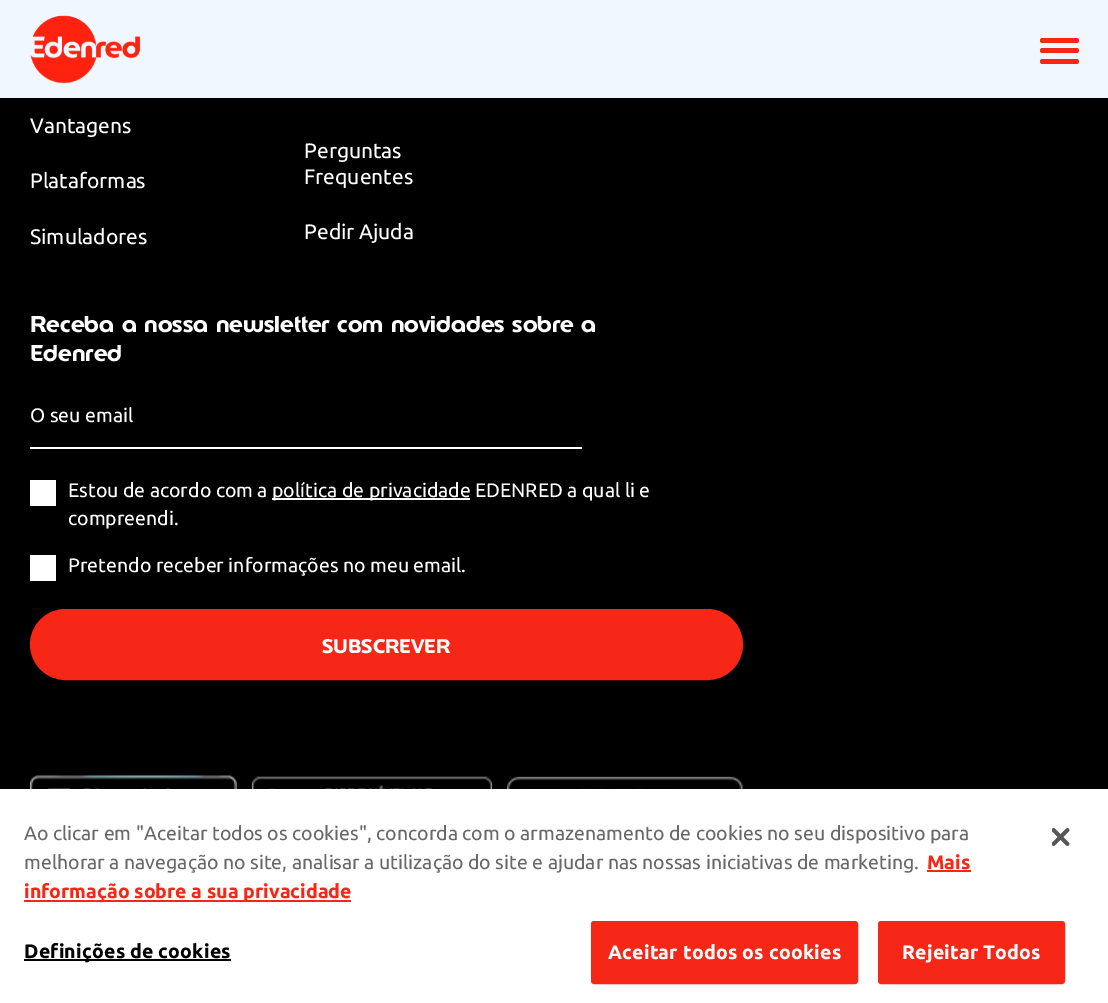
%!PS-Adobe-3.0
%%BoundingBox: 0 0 1108 1003
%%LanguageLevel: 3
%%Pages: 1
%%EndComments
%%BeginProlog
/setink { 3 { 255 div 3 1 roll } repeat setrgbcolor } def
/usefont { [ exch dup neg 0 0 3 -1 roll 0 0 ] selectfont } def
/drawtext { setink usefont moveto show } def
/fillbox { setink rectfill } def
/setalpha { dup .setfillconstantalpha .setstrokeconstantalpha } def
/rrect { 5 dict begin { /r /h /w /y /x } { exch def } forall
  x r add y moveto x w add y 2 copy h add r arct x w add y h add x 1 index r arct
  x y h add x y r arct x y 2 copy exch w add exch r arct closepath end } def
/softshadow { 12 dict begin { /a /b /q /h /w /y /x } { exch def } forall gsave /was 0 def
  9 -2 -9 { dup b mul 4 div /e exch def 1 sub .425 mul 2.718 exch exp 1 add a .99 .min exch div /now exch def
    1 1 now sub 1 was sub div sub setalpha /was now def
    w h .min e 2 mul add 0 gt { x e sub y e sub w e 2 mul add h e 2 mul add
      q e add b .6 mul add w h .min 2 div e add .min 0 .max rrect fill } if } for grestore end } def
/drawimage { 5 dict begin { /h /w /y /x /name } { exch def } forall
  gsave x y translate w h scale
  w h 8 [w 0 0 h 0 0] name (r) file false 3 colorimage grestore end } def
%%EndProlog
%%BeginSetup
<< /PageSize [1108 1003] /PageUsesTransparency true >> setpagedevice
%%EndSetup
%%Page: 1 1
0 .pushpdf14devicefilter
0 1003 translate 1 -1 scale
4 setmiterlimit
0 0 1108 1003 0 0 0 fillbox
0 0 1108 98 241 247 255 fillbox
(assets/img1.rgb) 30 15 111 69 drawimage
247 39 23 setink
1040 48 39 5 2.5 rrect fill
1040 38 39 5 2.5 rrect fill
1040 59 39 5 2.5 rrect fill
(Vantagens) 30 133 /Ubuntu-Regular 21 255 255 255 drawtext
(Plataformas) 30 188 /Ubuntu-Regular 21 255 255 255 drawtext
(Perguntas) 304 158 /Ubuntu-Regular 21 255 255 255 drawtext
(Frequentes) 304 184 /Ubuntu-Regular 21 255 255 255 drawtext
(Simuladores) 30 244 /Ubuntu-Regular 21 255 255 255 drawtext
(Pedir Ajuda) 304 239 /Ubuntu-Regular 21 255 255 255 drawtext
(Receba a nossa newsletter com novidades sobre a) 30 332 /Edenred-Bold 22.5 255 255 255 drawtext
(Edenred) 30 361 /Edenred-Bold 22.5 255 255 255 drawtext
30 447 552 2 255 255 255 fillbox
(O seu email) 30 422 /Ubuntu-Regular 19.5 255 255 255 drawtext
30 480 26 26 255 255 255 fillbox
(Estou de acordo com a) 68 497 /Ubuntu-Regular 19.5 255 255 255 drawtext
272 498 198 2 255 255 255 fillbox
(política de privacidade EDENRED a qual li e) 272 497 /Ubuntu-Regular 19.5 255 255 255 drawtext
(compreendi.) 68 525 /Ubuntu-Regular 19.5 255 255 255 drawtext
30 555 26 26 255 255 255 fillbox
(Pretendo receber informações no meu email.) 68 572 /Ubuntu-Regular 19.5 255 255 255 drawtext
247 39 23 setink
31.5 610.5 710 68 34 rrect gsave fill grestore
3 setlinewidth
stroke
(SUBSCREVER) 322 653 /Edenred-Bold 19.5 255 255 255 drawtext
(assets/img2.rgb) 30 775 207 14 drawimage
(assets/img3.rgb) 252 776 240 13 drawimage
(assets/img4.rgb) 507 776 236 13 drawimage
0 0 0 setink
0 789 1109 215 0 13.5 0.2 softshadow
0 789 1108 214 255 255 255 fillbox
(Ao clicar em "Aceitar todos os cookies", concorda com o armazenamento de cookies no seu dispositivo para) 24 840 /Ubuntu-Regular 19.5 105 105 105 drawtext
(melhorar a navegação no site, analisar a utilização do site e ajudar nas nossas iniciativas de marketing.) 24 869 /Ubuntu-Regular 19.5 105 105 105 drawtext
(Mais) 927 869 /Ubuntu-Bold 19.5 247 39 23 drawtext
927 870 44 2 247 39 23 fillbox
24 900 327 2 247 39 23 fillbox
(informação sobre a sua privacidade) 24 898 /Ubuntu-Bold 19.5 247 39 23 drawtext
24 959 207 2 0 0 0 fillbox
24 958 moveto 0.2 0 (Definições de cookies) ashow
247 39 23 setink
592 922 265 61 2 rrect gsave fill grestore
2 setlinewidth
stroke
255 255 255 setink
608 959 moveto 0.2 0 (Aceitar todos os cookies) ashow
247 39 23 setink
879 922 185 61 2 rrect gsave fill grestore
stroke
255 255 255 setink
902 959 moveto 0.2 0 (Rejeitar Todos) ashow
(assets/img5.rgb) 1052 828 18 18 drawimage
.poppdf14devicefilter showpage
%%EOF
